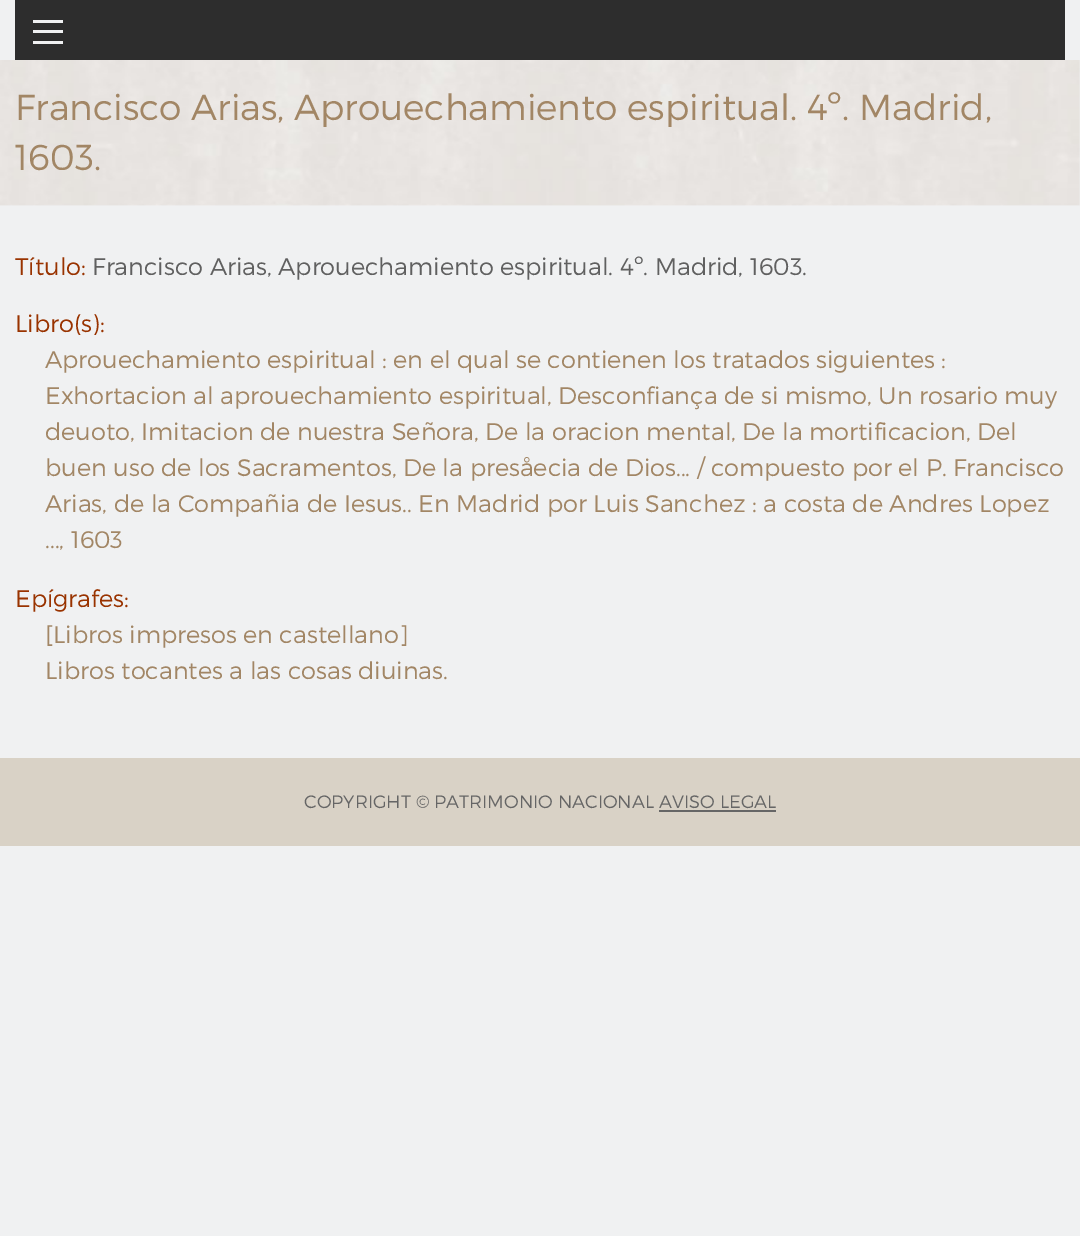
%!PS-Adobe-3.0
%%BoundingBox: 0 0 1080 1236
%%LanguageLevel: 3
%%Pages: 1
%%EndComments
%%BeginProlog
/setink { 3 { 255 div 3 1 roll } repeat setrgbcolor } def
/usefont { [ exch dup neg 0 0 3 -1 roll 0 0 ] selectfont } def
/drawtext { setink usefont moveto show } def
/fillbox { setink rectfill } def
/drawimage { 5 dict begin { /h /w /y /x /name } { exch def } forall
  gsave x y translate w h scale
  w h 8 [w 0 0 h 0 0] name (r) file false 3 colorimage grestore end } def
%%EndProlog
%%BeginSetup
<< /PageSize [1080 1236] >> setpagedevice
%%EndSetup
%%Page: 1 1
0 1236 translate 1 -1 scale
4 setmiterlimit
0 0 1080 1236 240 241 242 fillbox
15 0 1050 60 45 45 45 fillbox
33 41 30 3 240 241 242 fillbox
33 30 30 3 240 241 242 fillbox
33 20 30 3 240 241 242 fillbox
(assets/img1.rgb) 0 60 1080 146 drawimage
(Francisco Arias, Aprouechamiento espiritual. 4º. Madrid,) 15 120 /Montserrat-Light 36 162 134 101 drawtext
(1603.) 15 170 /Montserrat-Light 36 162 134 101 drawtext
(Título:) 15 275 /Montserrat-Light 24 153 51 0 drawtext
(Francisco Arias, Aprouechamiento espiritual. 4º. Madrid, 1603.) 92 275 /Montserrat-Light 24 96 96 96 drawtext
(Libro\(s\):) 15 332 /Montserrat-Light 24 153 51 0 drawtext
(Aprouechamiento espiritual : en el qual se contienen los tratados siguientes :) 45 368 /Montserrat-Light 24 162 134 101 drawtext
(Exhortacion al aprouechamiento espiritual, Desconfiança de si mismo, Un rosario muy) 45 404 /Montserrat-Light 24 162 134 101 drawtext
(deuoto, Imitacion de nuestra Señora, De la oracion mental, De la mortificacion, Del) 45 440 /Montserrat-Light 24 162 134 101 drawtext
(buen uso de los Sacramentos, De la presåecia de Dios... / compuesto por el P. Francisco) 45 476 /Montserrat-Light 24 162 134 101 drawtext
(Arias, de la Compañia de Iesus.. En Madrid por Luis Sanchez : a costa de Andres Lopez) 45 512 /Montserrat-Light 24 162 134 101 drawtext
(..., 1603) 45 548 /Montserrat-Light 24 162 134 101 drawtext
(Epígrafes:) 15 607 /Montserrat-Light 24 153 51 0 drawtext
([Libros impresos en castellano]) 45 643 /Montserrat-Light 24 162 134 101 drawtext
(Libros tocantes a las cosas diuinas.) 45 679 /Montserrat-Light 24 162 134 101 drawtext
0 758 1080 88 217 210 198 fillbox
(COPYRIGHT © PATRIMONIO NACIONAL AVISO LEGAL) 304 808 /Montserrat-Light 18 102 102 102 drawtext
659 810 117 2 102 102 102 fillbox
showpage
%%EOF
